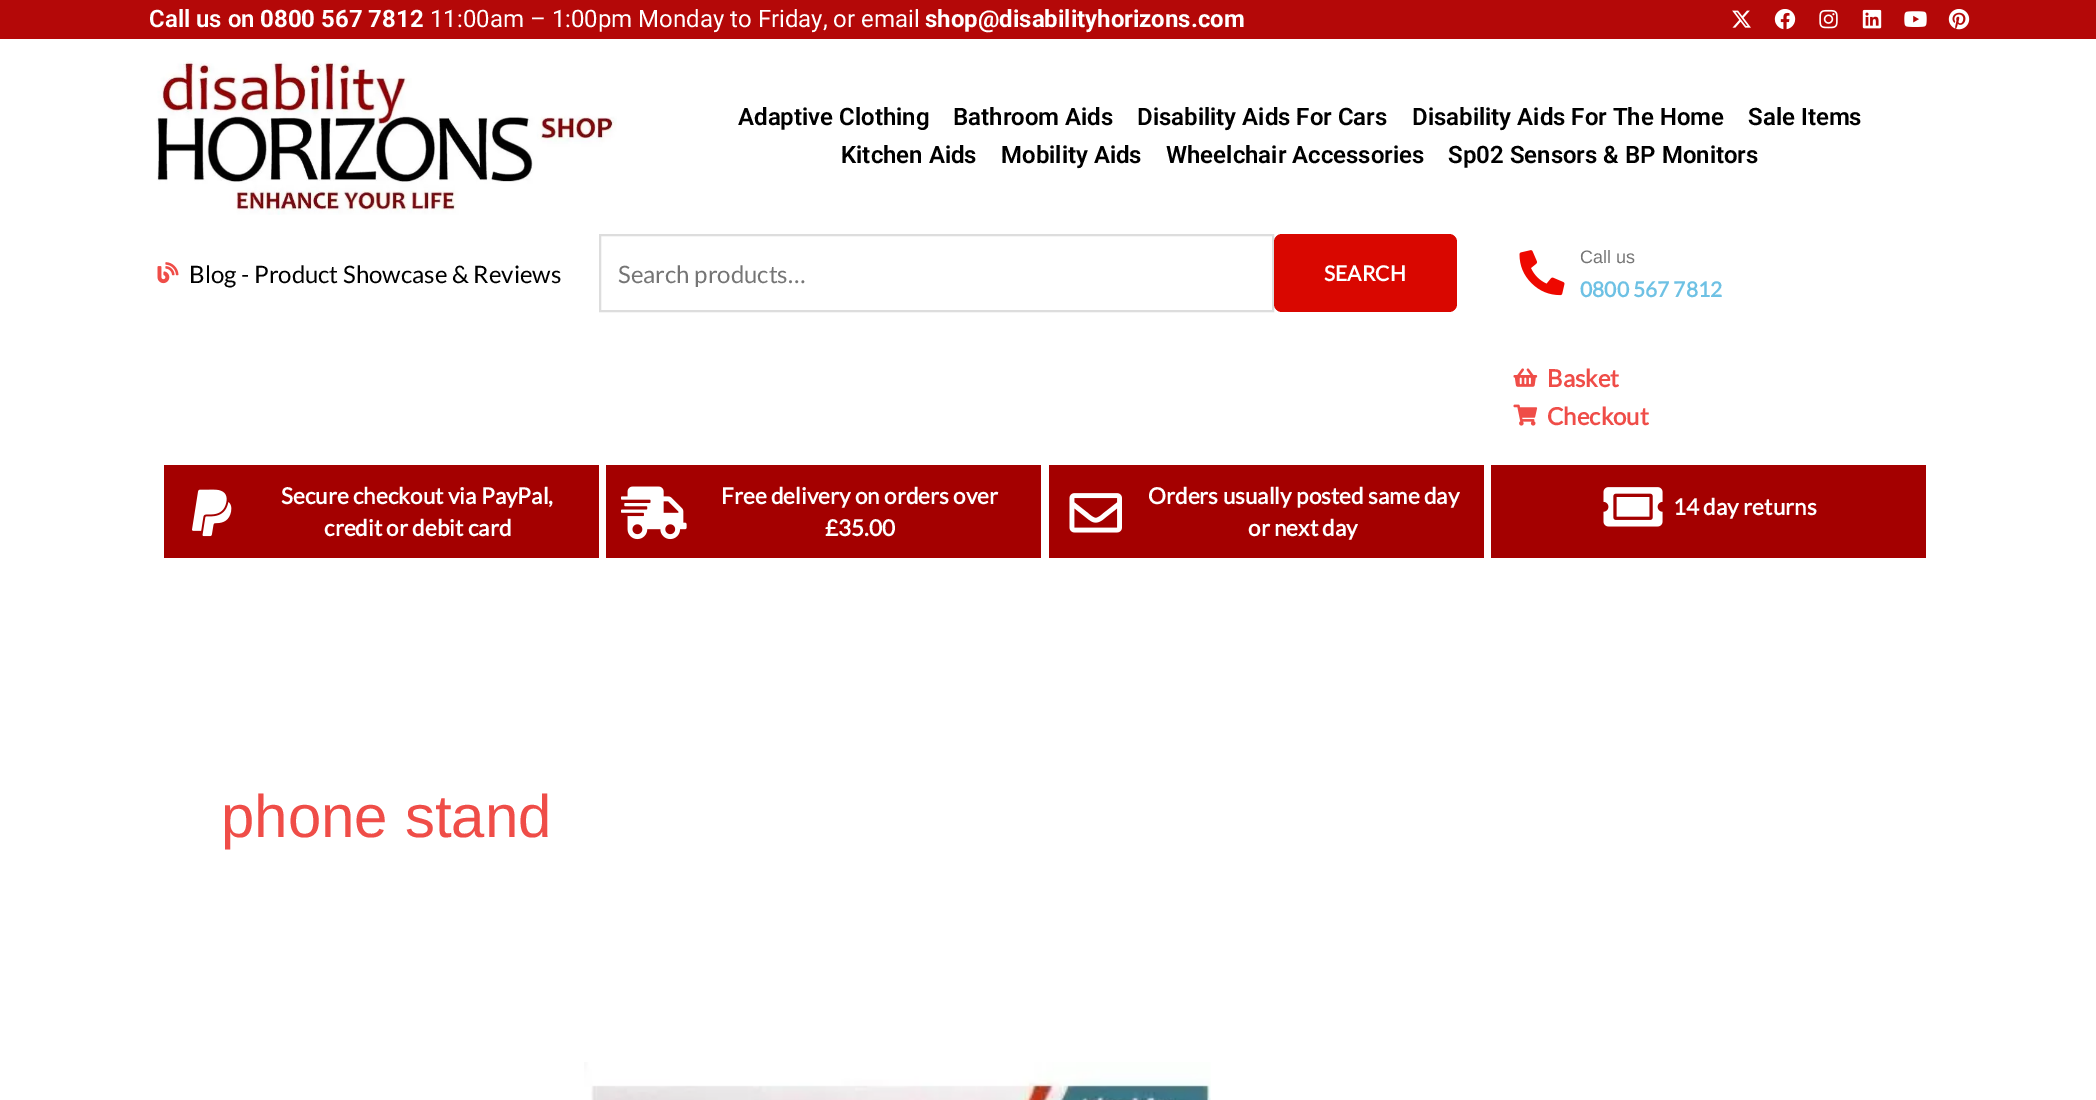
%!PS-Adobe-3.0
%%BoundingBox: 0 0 2096 1100
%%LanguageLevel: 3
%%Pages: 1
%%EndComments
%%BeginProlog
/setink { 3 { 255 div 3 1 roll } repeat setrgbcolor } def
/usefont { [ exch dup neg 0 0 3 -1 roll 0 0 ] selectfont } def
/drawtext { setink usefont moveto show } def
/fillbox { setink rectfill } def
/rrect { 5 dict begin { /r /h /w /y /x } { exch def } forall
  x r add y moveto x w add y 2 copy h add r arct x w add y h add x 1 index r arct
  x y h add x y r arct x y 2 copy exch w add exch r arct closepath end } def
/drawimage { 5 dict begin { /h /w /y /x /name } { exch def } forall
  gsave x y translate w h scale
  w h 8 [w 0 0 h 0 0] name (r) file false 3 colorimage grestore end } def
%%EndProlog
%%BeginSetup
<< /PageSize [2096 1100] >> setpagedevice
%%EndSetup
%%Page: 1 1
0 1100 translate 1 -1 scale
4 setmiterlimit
0 0 2096 1100 255 255 255 fillbox
0 0 2096 39 180 8 8 fillbox
(Call us on) 149 27 /Roboto-SemiBold 24 255 255 255 drawtext
(0800 567 7812) 260 27 /Roboto-Bold 24 255 255 255 drawtext
(11:00am – 1:00pm Monday to Friday, or email) 430 27 /Roboto-Regular 24 255 255 255 drawtext
(shop@disabilityhorizons.com) 925 27 /Roboto-Bold 24 255 255 255 drawtext
(assets/img1.rgb) 1732 10 19 18 drawimage
(assets/img2.rgb) 1774 9 22 21 drawimage
(assets/img3.rgb) 1819 9 19 20 drawimage
(assets/img4.rgb) 1862 9 20 20 drawimage
(assets/img5.rgb) 1904 11 23 16 drawimage
(assets/img6.rgb) 1948 9 22 21 drawimage
(assets/img7.rgb) 156 60 461 155 drawimage
(Adaptive Clothing) 738 125 /Roboto-SemiBold 24 0 0 0 drawtext
(Bathroom Aids) 953 125 /Roboto-SemiBold 24 0 0 0 drawtext
(Disability Aids For Cars) 1137 125 /Roboto-SemiBold 24 0 0 0 drawtext
(Disability Aids For The Home) 1412 125 /Roboto-SemiBold 24 0 0 0 drawtext
(Sale Items) 1748 125 /Roboto-SemiBold 24 0 0 0 drawtext
(Kitchen Aids) 841 163 /Roboto-SemiBold 24 0 0 0 drawtext
(Mobility Aids) 1001 163 /Roboto-SemiBold 24 0 0 0 drawtext
(Wheelchair Accessories) 1166 163 /Roboto-SemiBold 24 0 0 0 drawtext
(Sp02 Sensors & BP Monitors) 1448 163 /Roboto-SemiBold 24 0 0 0 drawtext
(assets/img8.rgb) 157 262 22 22 drawimage
(Blog - Product Showcase & Reviews) 189 283 /Lato-Regular 24 0 0 0 drawtext
221 221 221 setink
2 setlinewidth
600 235 673 76 rectstroke
(Search products…) 618 283 /Lato-Regular 24 117 117 117 drawtext
217 7 0 setink
1274 234 183 78 8 rrect fill
(SEARCH) 1324 281 /Lato-Bold 21 255 255 255 drawtext
(assets/img9.rgb) 1519 250 46 46 drawimage
(Call us) 1580 263 /LiberationSans-Regular 18 117 117 117 drawtext
(0800 567 7812) 1580 297 /Lato-Bold 21 110 193 228 drawtext
(assets/img10.rgb) 1513 368 25 19 drawimage
(Basket) 1547 387 /Lato-Bold 24 239 77 72 drawtext
(assets/img11.rgb) 1513 404 25 22 drawimage
(Checkout) 1547 425 /Lato-Bold 24 239 77 72 drawtext
164 465 435 93 164 0 0 fillbox
(assets/img12.rgb) 192 489 40 48 drawimage
(Secure checkout via PayPal,) 281 504 /Lato-Bold 22.5 255 255 255 drawtext
(credit or debit card) 324 536 /Lato-Bold 22.5 255 255 255 drawtext
606 465 435 93 164 0 0 fillbox
(assets/img13.rgb) 621 486 66 54 drawimage
(Free delivery on orders over) 721 504 /Lato-Bold 22.5 255 255 255 drawtext
(£35.00) 825 536 /Lato-Bold 22.5 255 255 255 drawtext
1049 465 435 93 164 0 0 fillbox
(assets/img14.rgb) 1069 493 53 40 drawimage
(Orders usually posted same day) 1148 504 /Lato-Bold 22.5 255 255 255 drawtext
(or next day) 1248 536 /Lato-Bold 22.5 255 255 255 drawtext
1491 465 435 93 164 0 0 fillbox
(assets/img15.rgb) 1603 487 60 40 drawimage
(14 day returns) 1673 515 /Lato-Bold 22.5 255 255 255 drawtext
(phone stand) 221 837 /LiberationSans-Regular 60 239 77 72 drawtext
(assets/img16.rgb) 584 1062 627 38 drawimage
showpage
%%EOF
